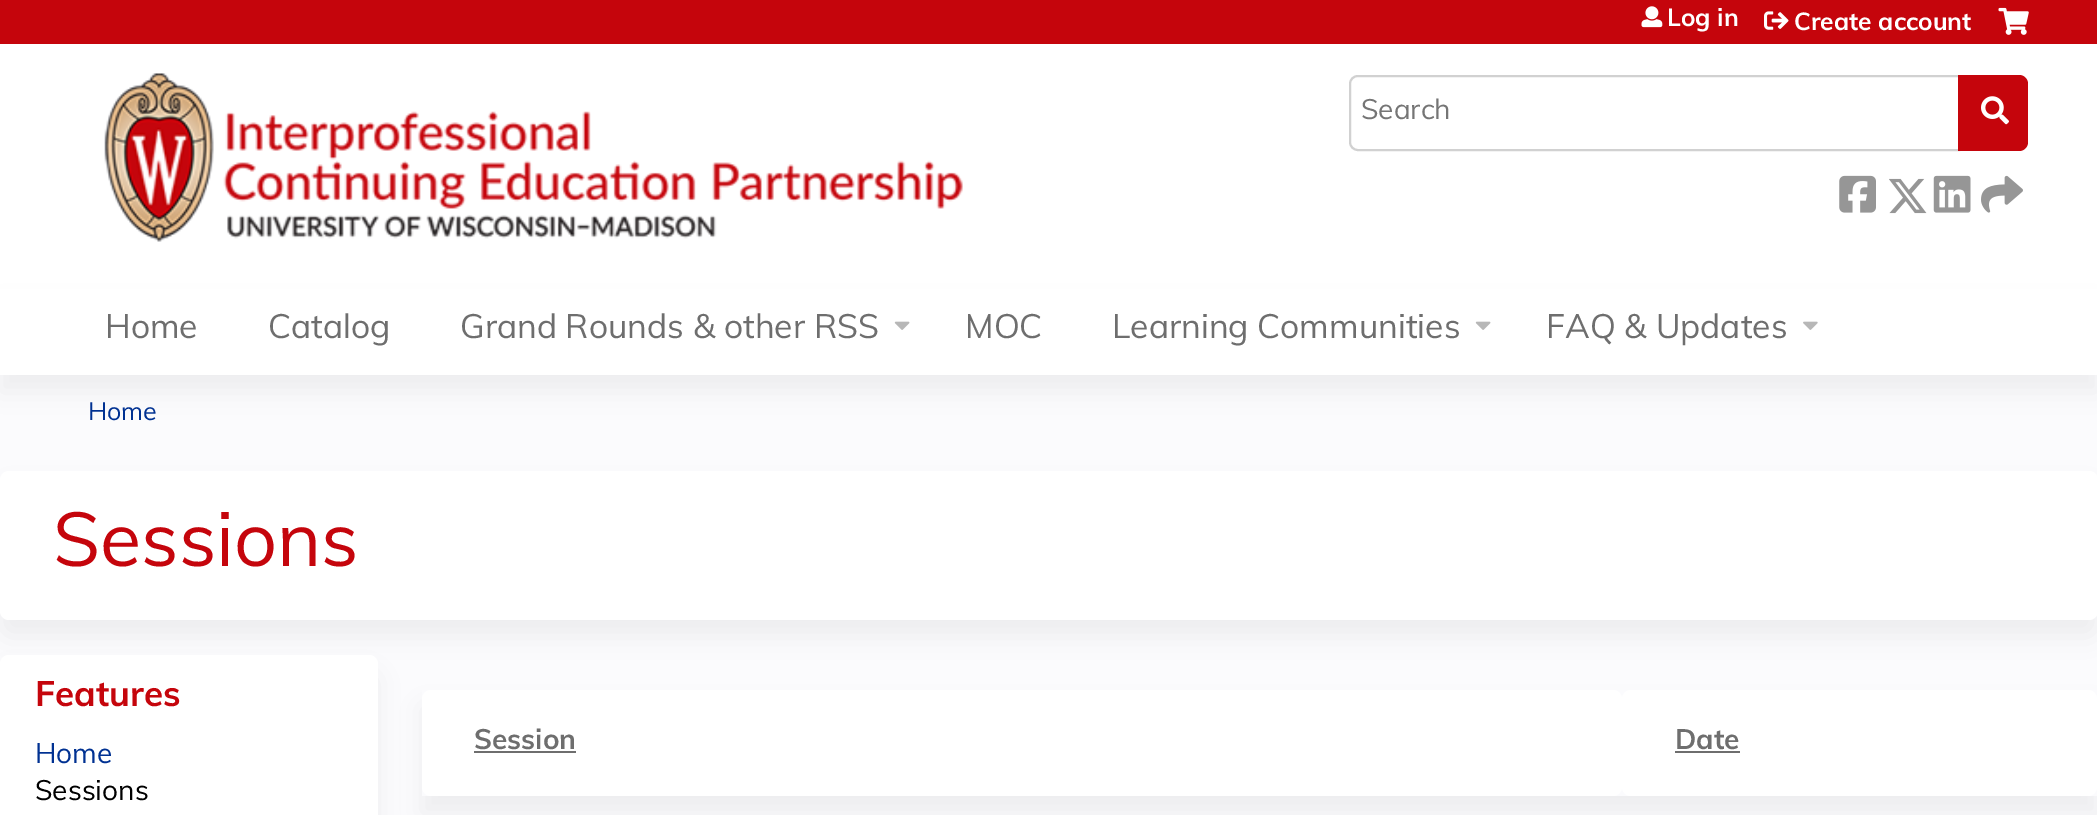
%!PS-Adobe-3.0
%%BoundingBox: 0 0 2097 815
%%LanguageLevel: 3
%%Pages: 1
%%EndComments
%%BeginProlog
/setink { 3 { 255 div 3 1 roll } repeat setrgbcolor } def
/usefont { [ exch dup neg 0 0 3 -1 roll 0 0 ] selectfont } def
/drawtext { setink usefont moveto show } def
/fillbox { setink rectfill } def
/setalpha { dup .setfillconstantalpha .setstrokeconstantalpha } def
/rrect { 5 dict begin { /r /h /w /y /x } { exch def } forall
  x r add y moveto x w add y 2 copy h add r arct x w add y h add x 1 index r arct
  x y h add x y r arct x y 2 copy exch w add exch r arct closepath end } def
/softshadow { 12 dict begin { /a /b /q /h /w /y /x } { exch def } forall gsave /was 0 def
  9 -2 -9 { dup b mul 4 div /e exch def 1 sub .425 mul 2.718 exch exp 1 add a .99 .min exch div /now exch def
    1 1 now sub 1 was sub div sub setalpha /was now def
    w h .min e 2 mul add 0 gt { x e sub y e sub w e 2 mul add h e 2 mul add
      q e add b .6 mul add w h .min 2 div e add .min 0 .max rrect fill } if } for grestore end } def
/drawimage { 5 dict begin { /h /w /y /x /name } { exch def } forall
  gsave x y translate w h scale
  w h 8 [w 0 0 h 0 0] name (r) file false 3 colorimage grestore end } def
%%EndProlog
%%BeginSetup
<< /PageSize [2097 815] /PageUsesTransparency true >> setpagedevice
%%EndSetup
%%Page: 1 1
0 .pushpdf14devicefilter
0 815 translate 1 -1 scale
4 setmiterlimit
0 0 2097 815 251 251 253 fillbox
0 44 2097 245 255 255 255 fillbox
0 0 2097 44 197 5 12 fillbox
(assets/img1.rgb) 104 73 859 169 drawimage
(assets/img2.rgb) 1641 6 22 22 drawimage
(Log in) 1667 26 /Muli-Bold 24.5 255 255 255 drawtext
(assets/img3.rgb) 1764 11 25 19 drawimage
(Create account) 1794 30 /Muli-Bold 24.5 255 255 255 drawtext
(assets/img4.rgb) 1998 7 31 28 drawimage
209 209 209 setink
2 setlinewidth
1358 76 moveto 1959 76 lineto 1959 150 lineto 1358 150 lineto 1353.5 150 1350 146.5 1350 142 curveto 1350 84 lineto 1350 79.5 1353.5 76 1358 76 curveto closepath stroke
197 5 12 setink
1958 75 moveto 2019 75 lineto 2024 75 2028 79 2028 84 curveto 2028 142 lineto 2028 147 2024 151 2019 151 curveto 1958 151 lineto closepath fill
(Search) 1361 119 /Muli-Regular 28 117 117 117 drawtext
(assets/img5.rgb) 1981 96 28 29 drawimage
(assets/img6.rgb) 1839 175 37 38 drawimage
(assets/img7.rgb) 1889 178 38 36 drawimage
(assets/img8.rgb) 1933 175 38 38 drawimage
(assets/img9.rgb) 1981 175 42 38 drawimage
0 0 0 setink
0 306 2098 86 0 13 0.05 softshadow
0 289 2097 86 255 255 255 fillbox
(Home) 105 338 /Muli-Regular 33.6 110 110 110 drawtext
(Catalog) 268 338 /Muli-Regular 33.6 110 110 110 drawtext
(Grand Rounds & other RSS) 460 338 /Muli-Regular 33.6 110 110 110 drawtext
(assets/img10.rgb) 894 321 16 9 drawimage
(MOC) 965 338 /Muli-Regular 33.6 110 110 110 drawtext
(Learning Communities) 1112 338 /Muli-Regular 33.6 110 110 110 drawtext
(assets/img10.rgb) 1475 321 16 9 drawimage
(FAQ & Updates) 1546 338 /Muli-Regular 33.6 110 110 110 drawtext
(assets/img11.rgb) 1803 321 15 9 drawimage
(Home) 88 420 /Muli-Regular 25 0 49 146 drawtext
0 0 0 setink
0 488 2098 149 9 13 0.05 softshadow
255 255 255 setink
0 471 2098 149 9 rrect fill
(Sessions) 53 566 /Muli-Regular 75.5 197 5 12 drawtext
0 0 0 setink
0 672 378 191 9 13 0.05 softshadow
255 255 255 setink
0 655 378 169 9 rrect fill
(Features) 35 706 /Muli-Bold 35 197 5 12 drawtext
(Home) 35 763 /Muli-Regular 28 0 49 146 drawtext
(Sessions) 35 800 /Muli-Regular 28 0 0 0 drawtext
gsave
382 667 moveto 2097 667 lineto 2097 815 lineto 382 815 lineto closepath 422 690 moveto 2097 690 lineto 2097 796 lineto 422 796 lineto closepath eoclip newpath
422 707 1675 107 0 13 0.05 softshadow
grestore
255 255 255 setink
422 690 1200 106 9 rrect fill
(Session) 474 749 /Muli-Bold 28 110 110 110 drawtext
474 751 102 2 110 110 110 fillbox
255 255 255 setink
1622 690 475 106 9 rrect fill
(Date) 1675 749 /Muli-Bold 28 110 110 110 drawtext
1675 751 65 2 110 110 110 fillbox
.poppdf14devicefilter showpage
%%EOF
